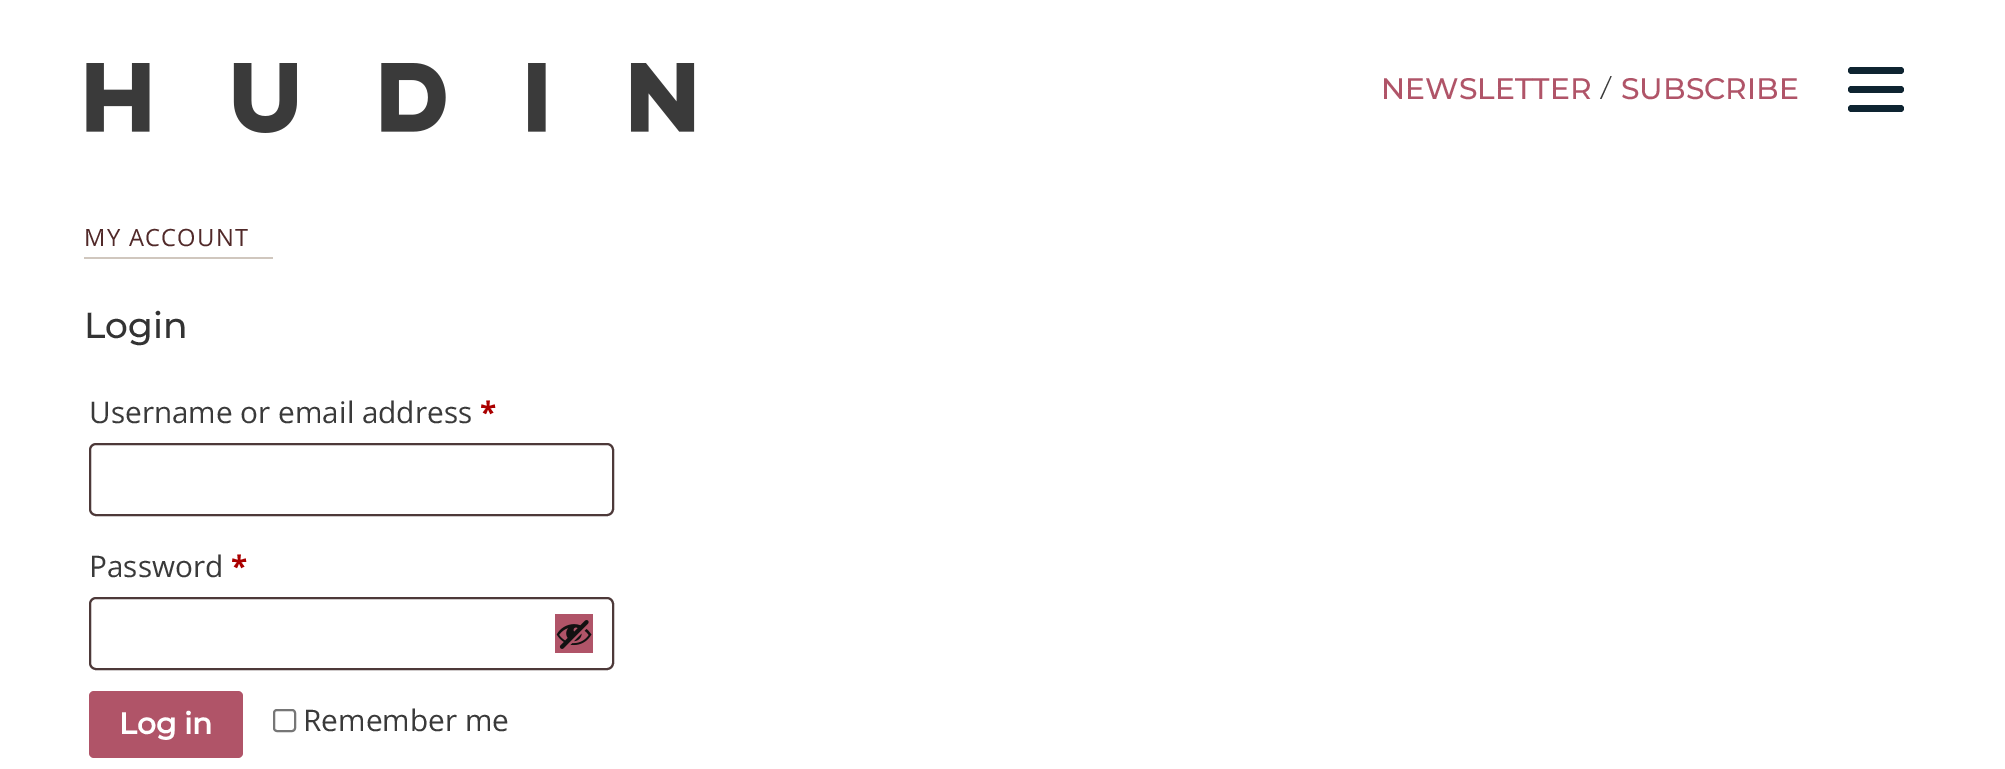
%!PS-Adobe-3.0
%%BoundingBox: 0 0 2005 769
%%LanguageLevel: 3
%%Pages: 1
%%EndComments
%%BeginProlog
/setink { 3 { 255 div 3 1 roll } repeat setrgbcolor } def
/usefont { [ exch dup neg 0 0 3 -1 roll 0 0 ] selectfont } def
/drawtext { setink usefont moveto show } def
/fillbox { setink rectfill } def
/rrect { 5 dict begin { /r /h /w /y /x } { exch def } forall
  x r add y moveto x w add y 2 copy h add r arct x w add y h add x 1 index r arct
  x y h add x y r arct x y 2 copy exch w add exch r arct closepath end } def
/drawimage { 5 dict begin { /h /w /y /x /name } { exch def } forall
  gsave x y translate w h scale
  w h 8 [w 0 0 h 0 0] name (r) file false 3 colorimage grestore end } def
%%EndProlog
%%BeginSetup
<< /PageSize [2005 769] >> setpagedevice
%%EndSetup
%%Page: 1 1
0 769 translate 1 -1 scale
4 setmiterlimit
0 0 2005 769 255 255 255 fillbox
(assets/img1.rgb) 86 63 609 70 drawimage
(NEWSLETTER) 1381 99 /Montserrat-Thin 29.75 176 84 104 drawtext
(/) 1599 99 /LibreBaskerville-Regular 29.75 58 58 58 drawtext
(SUBSCRIBE) 1621 99 /Montserrat-Thin 29.75 176 84 104 drawtext
14 36 49 setink
1848 67 56 7 3.5 rrect fill
1848 86 56 7 3.5 rrect fill
1848 105 56 7 3.5 rrect fill
/OpenSans-Regular 23.75 usefont
81 41 41 setink
84 246 moveto 1.25 0 (MY ACCOUNT) ashow
84 257 189 2 208 199 190 fillbox
(Login) 84 338 /Montserrat-Thin 36 51 51 51 drawtext
(Username or email address) 89 423 /OpenSans-Regular 29.75 58 58 58 drawtext
(*) 480 423 /OpenSans-Bold 29.75 170 0 0 drawtext
77 57 57 setink
2 setlinewidth
90 444 523 71 6 rrect stroke
(Password) 89 577 /OpenSans-Regular 29.75 58 58 58 drawtext
(*) 231 577 /OpenSans-Bold 29.75 170 0 0 drawtext
77 57 57 setink
90 598 523 71 6 rrect stroke
555 614 38 39 176 84 104 fillbox
(assets/img2.rgb) 556 620 36 29 drawimage
89 691 154 67 5 rrect fill
(Log in) 119 734 /Montserrat-Bold 29.75 255 255 255 drawtext
118 118 118 setink
274 710 21 21 3 rrect stroke
(Remember me) 303 731 /OpenSans-Regular 29.75 58 58 58 drawtext
showpage
%%EOF
